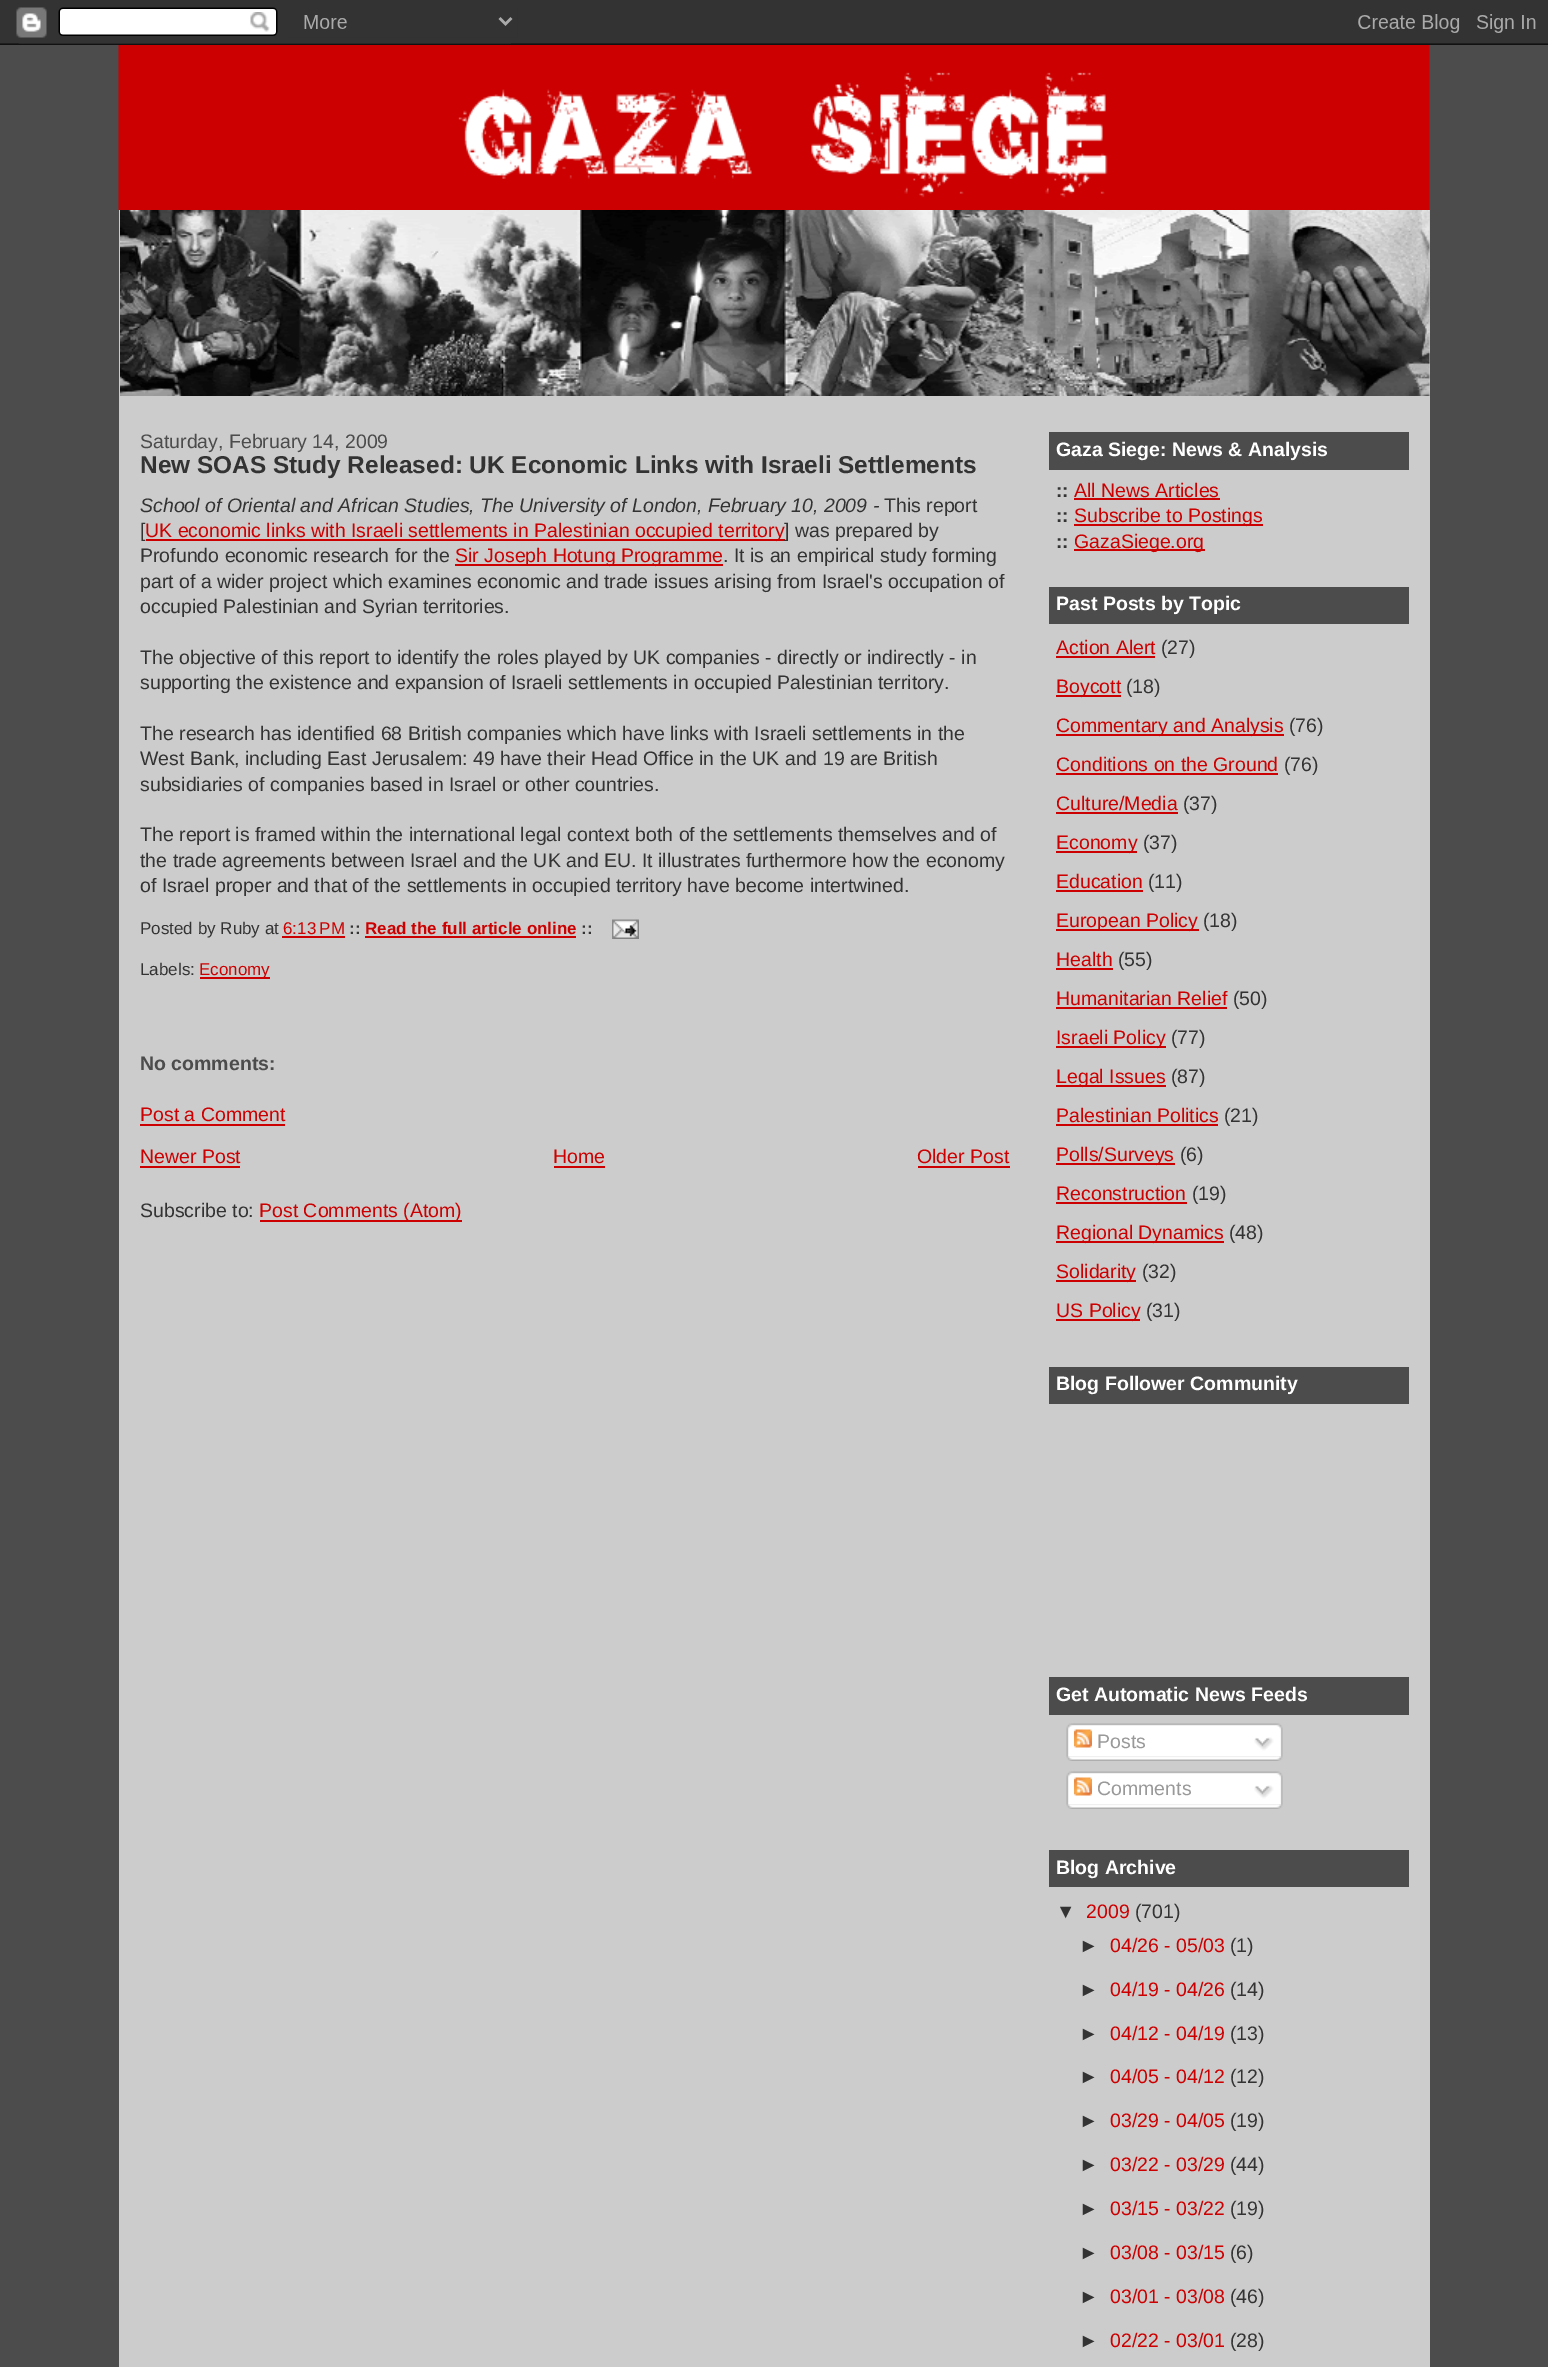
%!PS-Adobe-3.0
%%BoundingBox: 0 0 1548 2367
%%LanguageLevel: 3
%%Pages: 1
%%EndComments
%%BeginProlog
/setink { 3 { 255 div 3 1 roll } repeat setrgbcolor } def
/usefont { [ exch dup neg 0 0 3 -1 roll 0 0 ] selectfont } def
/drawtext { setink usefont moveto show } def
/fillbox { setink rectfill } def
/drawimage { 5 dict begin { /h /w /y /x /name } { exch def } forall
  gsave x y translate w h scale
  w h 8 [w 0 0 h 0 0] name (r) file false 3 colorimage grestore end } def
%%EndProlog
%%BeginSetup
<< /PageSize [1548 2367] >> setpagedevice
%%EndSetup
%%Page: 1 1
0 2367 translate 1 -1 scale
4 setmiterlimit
0 0 1548 2367 76 76 76 fillbox
(assets/img1.rgb) 0 0 1548 45 drawimage
(assets/img2.rgb) 118 45 1312 165 drawimage
119 210 1311 2157 204 204 204 fillbox
(assets/img3.rgb) 120 210 1310 186 drawimage
(Saturday, February 14, 2009) 140 448 /LiberationSans-Regular 19.5 76 76 76 drawtext
(New SOAS Study Released: UK Economic Links with Israeli Settlements) 140 473 /LiberationSans-Bold 24.4 51 51 51 drawtext
(School of Oriental and African Studies, The University of London, February 10, 2009 -) 140 512 /LiberationSans-Italic 19.5 51 51 51 drawtext
(This report) 884 512 /LiberationSans-Regular 19.5 51 51 51 drawtext
([) 140 537 /LiberationSans-Regular 19.5 51 51 51 drawtext
146 539 639 2 204 0 0 fillbox
(UK economic links with Israeli settlements in Palestinian occupied territory) 145 537 /LiberationSans-Regular 19.5 204 0 0 drawtext
(] was prepared by) 784 537 /LiberationSans-Regular 19.5 51 51 51 drawtext
(Profundo economic research for the) 140 562 /LiberationSans-Regular 19.5 51 51 51 drawtext
455 564 268 2 204 0 0 fillbox
(Sir Joseph Hotung Programme) 455 562 /LiberationSans-Regular 19.5 204 0 0 drawtext
(. It is an empirical study forming) 723 562 /LiberationSans-Regular 19.5 51 51 51 drawtext
(part of a wider project which examines economic and trade issues arising from Israel's occupation of) 140 588 /LiberationSans-Regular 19.5 51 51 51 drawtext
(occupied Palestinian and Syrian territories.) 140 613 /LiberationSans-Regular 19.5 51 51 51 drawtext
(The objective of this report to identify the roles played by UK companies - directly or indirectly - in) 140 664 /LiberationSans-Regular 19.5 51 51 51 drawtext
(supporting the existence and expansion of Israeli settlements in occupied Palestinian territory.) 140 689 /LiberationSans-Regular 19.5 51 51 51 drawtext
(The research has identified 68 British companies which have links with Israeli settlements in the) 140 740 /LiberationSans-Regular 19.5 51 51 51 drawtext
(West Bank, including East Jerusalem: 49 have their Head Office in the UK and 19 are British) 140 765 /LiberationSans-Regular 19.5 51 51 51 drawtext
(subsidiaries of companies based in Israel or other countries.) 140 791 /LiberationSans-Regular 19.5 51 51 51 drawtext
(The report is framed within the international legal context both of the settlements themselves and of) 140 841 /LiberationSans-Regular 19.5 51 51 51 drawtext
(the trade agreements between Israel and the UK and EU. It illustrates furthermore how the economy) 140 867 /LiberationSans-Regular 19.5 51 51 51 drawtext
(of Israel proper and that of the settlements in occupied territory have become intertwined.) 140 892 /LiberationSans-Regular 19.5 51 51 51 drawtext
(Posted by Ruby at) 140 934 /LiberationSans-Regular 17 51 51 51 drawtext
(6:13 PM) 283 934 /LiberationSans-Regular 17 204 0 0 drawtext
282 936 63 2 204 0 0 fillbox
(::) 349 934 /LiberationSans-Bold 17 51 51 51 drawtext
(Read the full article online) 365 934 /LiberationSans-Bold 17 204 0 0 drawtext
365 936 211 2 204 0 0 fillbox
(::) 581 934 /LiberationSans-Bold 17 51 51 51 drawtext
(assets/img4.rgb) 612 919 27 20 drawimage
(Labels:) 140 975 /LiberationSans-Regular 17 51 51 51 drawtext
200 977 70 2 204 0 0 fillbox
(Economy) 199 975 /LiberationSans-Regular 17 204 0 0 drawtext
(No comments:) 140 1070 /LiberationSans-Bold 19.5 76 76 76 drawtext
(Post a Comment) 140 1121 /LiberationSans-Regular 19.5 204 0 0 drawtext
140 1124 145 2 204 0 0 fillbox
(Newer Post) 140 1163 /LiberationSans-Regular 19.5 204 0 0 drawtext
140 1166 100 2 204 0 0 fillbox
(Home) 553 1163 /LiberationSans-Regular 19.5 204 0 0 drawtext
554 1166 51 2 204 0 0 fillbox
(Older Post) 917 1163 /LiberationSans-Regular 19.5 204 0 0 drawtext
918 1166 92 2 204 0 0 fillbox
(Subscribe to:) 140 1217 /LiberationSans-Regular 19.5 51 51 51 drawtext
260 1220 202 2 204 0 0 fillbox
(Post Comments \(Atom\)) 259 1217 /LiberationSans-Regular 19.5 204 0 0 drawtext
1049 432 360 38 76 76 76 fillbox
(Gaza Siege: News & Analysis) 1056 456 /LiberationSans-Bold 19.5 255 255 255 drawtext
(::) 1056 497 /LiberationSans-Bold 19.5 51 51 51 drawtext
(All News Articles) 1074 497 /LiberationSans-Regular 19.5 204 0 0 drawtext
1074 498 146 2 204 0 0 fillbox
(::) 1056 522 /LiberationSans-Bold 19.5 51 51 51 drawtext
1074 524 189 2 204 0 0 fillbox
(Subscribe to Postings) 1074 522 /LiberationSans-Regular 19.5 204 0 0 drawtext
(::) 1056 548 /LiberationSans-Bold 19.5 51 51 51 drawtext
1074 549 131 2 204 0 0 fillbox
(GazaSiege.org) 1074 548 /LiberationSans-Regular 19.5 204 0 0 drawtext
1049 587 360 37 76 76 76 fillbox
(Past Posts by Topic) 1056 610 /LiberationSans-Bold 19.5 255 255 255 drawtext
(Action Alert) 1056 654 /LiberationSans-Regular 19.5 204 0 0 drawtext
1056 656 99 2 204 0 0 fillbox
(\(27\)) 1161 654 /LiberationSans-Regular 19.5 51 51 51 drawtext
1056 695 65 2 204 0 0 fillbox
(Boycott) 1056 693 /LiberationSans-Regular 19.5 204 0 0 drawtext
(\(18\)) 1126 693 /LiberationSans-Regular 19.5 51 51 51 drawtext
1056 734 228 2 204 0 0 fillbox
(Commentary and Analysis) 1056 732 /LiberationSans-Regular 19.5 204 0 0 drawtext
(\(76\)) 1289 732 /LiberationSans-Regular 19.5 51 51 51 drawtext
(Conditions on the Ground) 1056 771 /LiberationSans-Regular 19.5 204 0 0 drawtext
1056 773 222 2 204 0 0 fillbox
(\(76\)) 1284 771 /LiberationSans-Regular 19.5 51 51 51 drawtext
(Culture/Media) 1056 810 /LiberationSans-Regular 19.5 204 0 0 drawtext
1056 812 122 2 204 0 0 fillbox
(\(37\)) 1183 810 /LiberationSans-Regular 19.5 51 51 51 drawtext
1056 851 81 2 204 0 0 fillbox
(Economy) 1056 849 /LiberationSans-Regular 19.5 204 0 0 drawtext
(\(37\)) 1143 849 /LiberationSans-Regular 19.5 51 51 51 drawtext
(Education) 1056 888 /LiberationSans-Regular 19.5 204 0 0 drawtext
1056 890 87 2 204 0 0 fillbox
(\(11\)) 1148 888 /LiberationSans-Regular 19.5 51 51 51 drawtext
1056 929 143 2 204 0 0 fillbox
(European Policy) 1056 927 /LiberationSans-Regular 19.5 204 0 0 drawtext
(\(18\)) 1203 927 /LiberationSans-Regular 19.5 51 51 51 drawtext
(Health) 1056 966 /LiberationSans-Regular 19.5 204 0 0 drawtext
1056 968 57 2 204 0 0 fillbox
(\(55\)) 1118 966 /LiberationSans-Regular 19.5 51 51 51 drawtext
(Humanitarian Relief) 1056 1005 /LiberationSans-Regular 19.5 204 0 0 drawtext
1056 1007 171 2 204 0 0 fillbox
(\(50\)) 1233 1005 /LiberationSans-Regular 19.5 51 51 51 drawtext
1056 1046 110 2 204 0 0 fillbox
(Israeli Policy) 1056 1044 /LiberationSans-Regular 19.5 204 0 0 drawtext
(\(77\)) 1171 1044 /LiberationSans-Regular 19.5 51 51 51 drawtext
1056 1085 110 2 204 0 0 fillbox
(Legal Issues) 1056 1083 /LiberationSans-Regular 19.5 204 0 0 drawtext
(\(87\)) 1171 1083 /LiberationSans-Regular 19.5 51 51 51 drawtext
(Palestinian Politics) 1056 1122 /LiberationSans-Regular 19.5 204 0 0 drawtext
1056 1124 162 2 204 0 0 fillbox
(\(21\)) 1224 1122 /LiberationSans-Regular 19.5 51 51 51 drawtext
1056 1163 119 2 204 0 0 fillbox
(Polls/Surveys) 1056 1161 /LiberationSans-Regular 19.5 204 0 0 drawtext
(\(6\)) 1180 1161 /LiberationSans-Regular 19.5 51 51 51 drawtext
(Reconstruction) 1056 1200 /LiberationSans-Regular 19.5 204 0 0 drawtext
1056 1202 131 2 204 0 0 fillbox
(\(19\)) 1192 1200 /LiberationSans-Regular 19.5 51 51 51 drawtext
1056 1241 168 2 204 0 0 fillbox
(Regional Dynamics) 1056 1239 /LiberationSans-Regular 19.5 204 0 0 drawtext
(\(48\)) 1229 1239 /LiberationSans-Regular 19.5 51 51 51 drawtext
1056 1280 80 2 204 0 0 fillbox
(Solidarity) 1056 1278 /LiberationSans-Regular 19.5 204 0 0 drawtext
(\(32\)) 1142 1278 /LiberationSans-Regular 19.5 51 51 51 drawtext
1056 1319 84 2 204 0 0 fillbox
(US Policy) 1056 1317 /LiberationSans-Regular 19.5 204 0 0 drawtext
(\(31\)) 1146 1317 /LiberationSans-Regular 19.5 51 51 51 drawtext
1049 1367 360 37 76 76 76 fillbox
(Blog Follower Community) 1056 1390 /LiberationSans-Bold 19.5 255 255 255 drawtext
1049 1677 360 38 76 76 76 fillbox
(Get Automatic News Feeds) 1056 1701 /LiberationSans-Bold 19.5 255 255 255 drawtext
(assets/img5.rgb) 1066 1723 217 34 drawimage
(assets/img6.rgb) 1074 1729 18 19 drawimage
(Posts) 1097 1748 /LiberationSans-Regular 19.5 153 153 153 drawtext
(assets/img7.rgb) 1254 1737 20 14 drawimage
(assets/img8.rgb) 1066 1756 217 5 drawimage
(assets/img5.rgb) 1066 1771 217 34 drawimage
(assets/img6.rgb) 1074 1777 18 19 drawimage
(Comments) 1097 1795 /LiberationSans-Regular 19.5 153 153 153 drawtext
(assets/img7.rgb) 1254 1785 20 14 drawimage
(assets/img8.rgb) 1066 1804 217 5 drawimage
1049 1850 360 37 76 76 76 fillbox
(Blog Archive) 1056 1874 /LiberationSans-Bold 19.5 255 255 255 drawtext
(▼) 1056 1918 /LiberationSans-Regular 19.5 51 51 51 drawtext
(2009) 1086 1918 /LiberationSans-Regular 19.5 204 0 0 drawtext
(\(701\)) 1135 1918 /LiberationSans-Regular 19.5 51 51 51 drawtext
(►) 1079 1952 /LiberationSans-Regular 19.5 51 51 51 drawtext
(04/26 - 05/03) 1110 1952 /LiberationSans-Regular 19.5 204 0 0 drawtext
(\(1\)) 1230 1952 /LiberationSans-Regular 19.5 51 51 51 drawtext
(►) 1079 1996 /LiberationSans-Regular 19.5 51 51 51 drawtext
(04/19 - 04/26) 1110 1996 /LiberationSans-Regular 19.5 204 0 0 drawtext
(\(14\)) 1230 1996 /LiberationSans-Regular 19.5 51 51 51 drawtext
(►) 1079 2040 /LiberationSans-Regular 19.5 51 51 51 drawtext
(04/12 - 04/19) 1110 2040 /LiberationSans-Regular 19.5 204 0 0 drawtext
(\(13\)) 1230 2040 /LiberationSans-Regular 19.5 51 51 51 drawtext
(►) 1079 2083 /LiberationSans-Regular 19.5 51 51 51 drawtext
(04/05 - 04/12) 1110 2083 /LiberationSans-Regular 19.5 204 0 0 drawtext
(\(12\)) 1230 2083 /LiberationSans-Regular 19.5 51 51 51 drawtext
(►) 1079 2127 /LiberationSans-Regular 19.5 51 51 51 drawtext
(03/29 - 04/05) 1110 2127 /LiberationSans-Regular 19.5 204 0 0 drawtext
(\(19\)) 1230 2127 /LiberationSans-Regular 19.5 51 51 51 drawtext
(►) 1079 2171 /LiberationSans-Regular 19.5 51 51 51 drawtext
(03/22 - 03/29) 1110 2171 /LiberationSans-Regular 19.5 204 0 0 drawtext
(\(44\)) 1230 2171 /LiberationSans-Regular 19.5 51 51 51 drawtext
(►) 1079 2215 /LiberationSans-Regular 19.5 51 51 51 drawtext
(03/15 - 03/22) 1110 2215 /LiberationSans-Regular 19.5 204 0 0 drawtext
(\(19\)) 1230 2215 /LiberationSans-Regular 19.5 51 51 51 drawtext
(►) 1079 2259 /LiberationSans-Regular 19.5 51 51 51 drawtext
(03/08 - 03/15) 1110 2259 /LiberationSans-Regular 19.5 204 0 0 drawtext
(\(6\)) 1230 2259 /LiberationSans-Regular 19.5 51 51 51 drawtext
(►) 1079 2303 /LiberationSans-Regular 19.5 51 51 51 drawtext
(03/01 - 03/08) 1110 2303 /LiberationSans-Regular 19.5 204 0 0 drawtext
(\(46\)) 1230 2303 /LiberationSans-Regular 19.5 51 51 51 drawtext
(►) 1079 2347 /LiberationSans-Regular 19.5 51 51 51 drawtext
(02/22 - 03/01) 1110 2347 /LiberationSans-Regular 19.5 204 0 0 drawtext
(\(28\)) 1230 2347 /LiberationSans-Regular 19.5 51 51 51 drawtext
showpage
%%EOF
